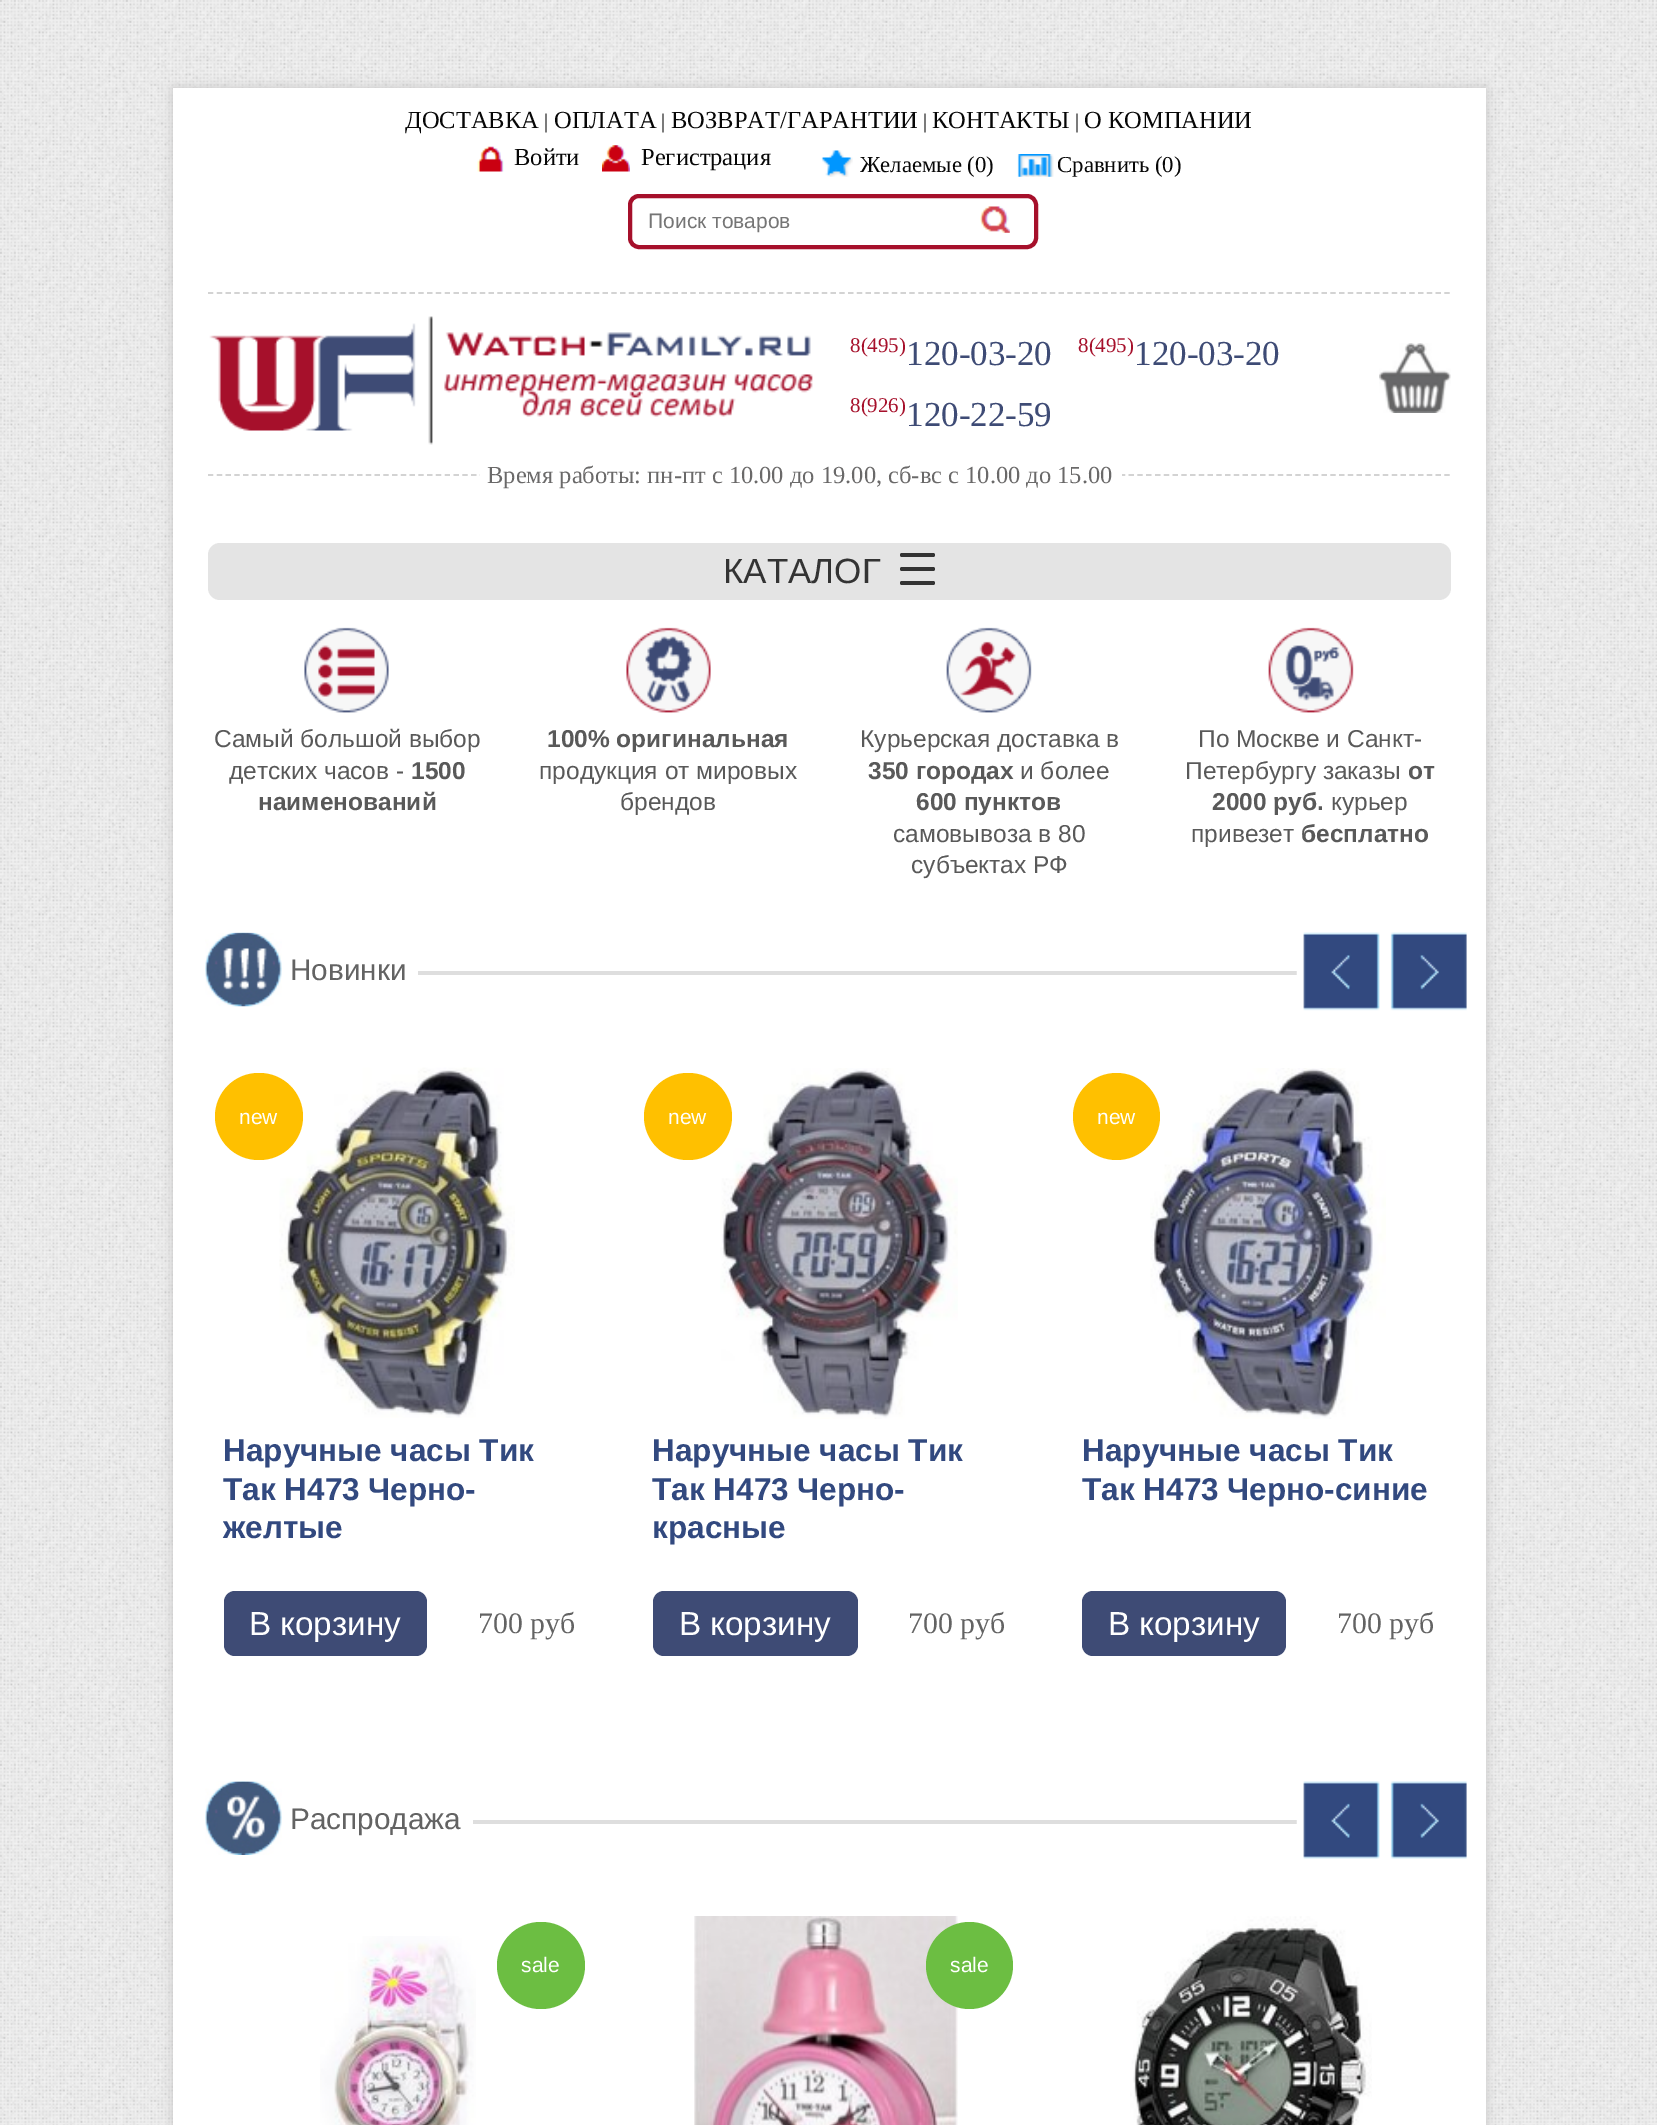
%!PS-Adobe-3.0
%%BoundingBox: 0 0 1657 2125
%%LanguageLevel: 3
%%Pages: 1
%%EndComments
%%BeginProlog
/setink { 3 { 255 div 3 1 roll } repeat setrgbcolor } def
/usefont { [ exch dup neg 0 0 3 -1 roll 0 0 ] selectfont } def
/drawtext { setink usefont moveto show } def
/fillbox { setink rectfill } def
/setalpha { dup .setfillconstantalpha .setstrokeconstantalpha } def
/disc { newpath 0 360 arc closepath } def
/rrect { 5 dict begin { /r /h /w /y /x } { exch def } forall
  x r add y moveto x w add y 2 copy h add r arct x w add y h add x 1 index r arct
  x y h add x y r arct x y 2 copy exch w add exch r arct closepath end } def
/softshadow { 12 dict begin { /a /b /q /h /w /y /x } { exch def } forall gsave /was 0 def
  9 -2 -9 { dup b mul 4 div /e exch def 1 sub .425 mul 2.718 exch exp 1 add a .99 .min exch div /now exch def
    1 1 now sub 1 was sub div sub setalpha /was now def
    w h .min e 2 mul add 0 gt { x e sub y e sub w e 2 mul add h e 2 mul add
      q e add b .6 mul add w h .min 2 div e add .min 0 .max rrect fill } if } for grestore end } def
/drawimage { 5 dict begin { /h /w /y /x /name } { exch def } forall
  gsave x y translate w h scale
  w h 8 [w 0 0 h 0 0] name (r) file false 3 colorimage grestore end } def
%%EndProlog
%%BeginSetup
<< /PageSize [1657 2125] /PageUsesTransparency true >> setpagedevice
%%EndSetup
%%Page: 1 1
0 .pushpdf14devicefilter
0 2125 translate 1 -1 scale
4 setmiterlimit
0 0 1657 2125 255 255 255 fillbox
(assets/img1.rgb) 0 0 1657 2125 drawimage
199 198 198 setink
173 88 1313 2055 0 6 1 softshadow
173 88 1313 2037 255 255 255 fillbox
(ДОСТАВКА) 405 128 /LiberationSerif-Regular 24.5 7 7 7 drawtext
(|) 544 128 /LiberationSerif-Regular 21 7 7 7 drawtext
(ОПЛАТА) 554 128 /LiberationSerif-Regular 24.5 7 7 7 drawtext
(|) 661 128 /LiberationSerif-Regular 21 7 7 7 drawtext
(ВОЗВРАТ/ГАРАНТИИ) 671 128 /LiberationSerif-Regular 24.5 7 7 7 drawtext
(|) 923 128 /LiberationSerif-Regular 21 7 7 7 drawtext
(КОНТАКТЫ) 932 128 /LiberationSerif-Regular 24.5 7 7 7 drawtext
(|) 1075 128 /LiberationSerif-Regular 21 7 7 7 drawtext
(О КОМПАНИИ) 1084 128 /LiberationSerif-Regular 24.5 7 7 7 drawtext
(assets/img2.rgb) 477 146 27 26 drawimage
(Войти) 514 165 /LiberationSerif-Regular 24.5 7 7 7 drawtext
(assets/img3.rgb) 602 145 28 27 drawimage
(Регистрация) 641 165 /LiberationSerif-Regular 24.5 7 7 7 drawtext
(assets/img4.rgb) 821 150 32 27 drawimage
(Желаемые \(0\)) 860 172 /LiberationSerif-Regular 22.75 7 7 7 drawtext
(assets/img5.rgb) 1017 154 37 23 drawimage
(Сравнить \(0\)) 1057 172 /LiberationSerif-Regular 22.75 7 7 7 drawtext
166 16 43 setink
4 setlinewidth
630 196 406 51 9 rrect stroke
(Поиск товаров) 648 228 /LiberationSans-Regular 21 117 117 117 drawtext
(assets/img6.rgb) 980 206 30 27 drawimage
211 211 211 setink
1.8 setlinewidth
[5.25 3.52] 0 setdash
208 293 moveto 1451 293 lineto stroke
208 475 moveto 1451 475 lineto stroke
(assets/img7.rgb) 209 316 604 129 drawimage
(8\(495\)) 850 352 /LiberationSerif-Regular 21 166 16 43 drawtext
(120-03-20) 906 365 /LiberationSerif-Regular 35 62 75 117 drawtext
(8\(495\)) 1078 352 /LiberationSerif-Regular 21 166 16 43 drawtext
(120-03-20) 1134 365 /LiberationSerif-Regular 35 62 75 117 drawtext
(assets/img8.rgb) 1379 343 72 70 drawimage
(8\(926\)) 850 412 /LiberationSerif-Regular 21 166 16 43 drawtext
(120-22-59) 906 426 /LiberationSerif-Regular 35 62 75 117 drawtext
480 474 642 2 255 255 255 fillbox
(Время работы: пн-пт с 10.00 до 19.00, сб-вс с 10.00 до 15.00) 487 483 /LiberationSerif-Regular 24.5 106 105 105 drawtext
228 228 228 setink
208 543 1243 57 12 rrect fill
(КАТАЛОГ) 723 583 /LiberationSans-Regular 35 51 51 51 drawtext
900 567 35 4 2 rrect fill
900 553 35 4 2 rrect fill
900 581 35 4 2 rrect fill
(assets/img9.rgb) 304 627 85 86 drawimage
(Самый большой выбор) 214 747 /LiberationSans-Regular 24.5 89 89 89 drawtext
(детских часов -) 229 779 /LiberationSans-Regular 24.5 89 89 89 drawtext
(1500) 411 779 /LiberationSans-Bold 24.5 89 89 89 drawtext
(наименований) 258 810 /LiberationSans-Bold 24.5 89 89 89 drawtext
(assets/img10.rgb) 626 627 85 86 drawimage
(100% оригинальная) 547 747 /LiberationSans-Bold 24.5 89 89 89 drawtext
(продукция от мировых) 539 779 /LiberationSans-Regular 24.5 89 89 89 drawtext
(брендов) 620 810 /LiberationSans-Regular 24.5 89 89 89 drawtext
(assets/img11.rgb) 946 627 86 86 drawimage
(Курьерская доставка в) 860 747 /LiberationSans-Regular 24.5 89 89 89 drawtext
(350 городах) 868 779 /LiberationSans-Bold 24.5 89 89 89 drawtext
(и более) 1020 779 /LiberationSans-Regular 24.5 89 89 89 drawtext
(600 пунктов) 916 810 /LiberationSans-Bold 24.5 89 89 89 drawtext
(самовывоза в 80) 893 842 /LiberationSans-Regular 24.5 89 89 89 drawtext
(субъектах РФ) 911 873 /LiberationSans-Regular 24.5 89 89 89 drawtext
(assets/img12.rgb) 1268 627 86 86 drawimage
(По Москве и Санкт-) 1198 747 /LiberationSans-Regular 24.5 89 89 89 drawtext
(Петербургу заказы) 1185 779 /LiberationSans-Regular 24.5 89 89 89 drawtext
(от) 1408 779 /LiberationSans-Bold 24.5 89 89 89 drawtext
(2000 руб.) 1212 810 /LiberationSans-Bold 24.5 89 89 89 drawtext
(курьер) 1331 810 /LiberationSans-Regular 24.5 89 89 89 drawtext
(привезет) 1191 842 /LiberationSans-Regular 24.5 89 89 89 drawtext
(бесплатно) 1301 842 /LiberationSans-Bold 24.5 89 89 89 drawtext
(assets/img13.rgb) 205 932 77 75 drawimage
(Новинки) 290 980 /LiberationSans-Regular 29.75 99 99 99 drawtext
418 971 879 4 222 222 222 fillbox
(assets/img14.rgb) 1296 932 84 79 drawimage
(assets/img15.rgb) 1390 932 77 79 drawimage
(assets/img16.rgb) 279 1067 236 351 drawimage
255 192 0 setink
215 1073 88 87 43.5 rrect fill
(new) 239 1124 /LiberationSans-Regular 21 255 255 255 drawtext
(Наручные часы Тик) 223 1461 /LiberationSans-Bold 31.5 50 73 127 drawtext
(Так Н473 Черно-) 223 1500 /LiberationSans-Bold 31.5 50 73 127 drawtext
(желтые) 223 1538 /LiberationSans-Bold 31.5 50 73 127 drawtext
62 75 117 setink
224 1591 203 65 11 rrect fill
(В корзину) 249 1635 /LiberationSans-Regular 33.25 255 255 255 drawtext
(700 руб) 478 1633 /LiberationSerif-Regular 29.75 99 99 99 drawtext
(assets/img17.rgb) 720 1068 238 351 drawimage
255 192 0 setink
644 1073 88 87 43.5 rrect fill
(new) 668 1124 /LiberationSans-Regular 21 255 255 255 drawtext
(Наручные часы Тик) 652 1461 /LiberationSans-Bold 31.5 50 73 127 drawtext
(Так Н473 Черно-) 652 1500 /LiberationSans-Bold 31.5 50 73 127 drawtext
(красные) 652 1538 /LiberationSans-Bold 31.5 50 73 127 drawtext
62 75 117 setink
653 1591 205 65 11 rrect fill
(В корзину) 679 1635 /LiberationSans-Regular 33.25 255 255 255 drawtext
(700 руб) 908 1633 /LiberationSerif-Regular 29.75 99 99 99 drawtext
(assets/img18.rgb) 1150 1068 236 351 drawimage
255 192 0 setink
1116.5 1116.5 43.5 disc fill
(new) 1097 1124 /LiberationSans-Regular 21 255 255 255 drawtext
(Наручные часы Тик) 1082 1461 /LiberationSans-Bold 31.5 50 73 127 drawtext
(Так Н473 Черно-синие) 1082 1500 /LiberationSans-Bold 31.5 50 73 127 drawtext
62 75 117 setink
1082 1591 204 65 11 rrect fill
(В корзину) 1108 1635 /LiberationSans-Regular 33.25 255 255 255 drawtext
(700 руб) 1337 1633 /LiberationSerif-Regular 29.75 99 99 99 drawtext
(assets/img19.rgb) 205 1781 77 74 drawimage
(Распродажа) 290 1829 /LiberationSans-Regular 29.75 99 99 99 drawtext
473 1820 824 4 222 222 222 fillbox
(assets/img20.rgb) 1296 1781 84 78 drawimage
(assets/img21.rgb) 1390 1781 77 78 drawimage
(assets/img22.rgb) 320 1936 156 189 drawimage
108 190 66 setink
497 1922 88 87 43.5 rrect fill
(sale) 521 1972 /LiberationSans-Regular 21 255 255 255 drawtext
(assets/img23.rgb) 694 1916 264 209 drawimage
108 190 66 setink
969.5 1965.5 43.5 disc fill
(sale) 950 1972 /LiberationSans-Regular 21 255 255 255 drawtext
(assets/img24.rgb) 1130 1916 242 209 drawimage
.poppdf14devicefilter showpage
%%EOF
